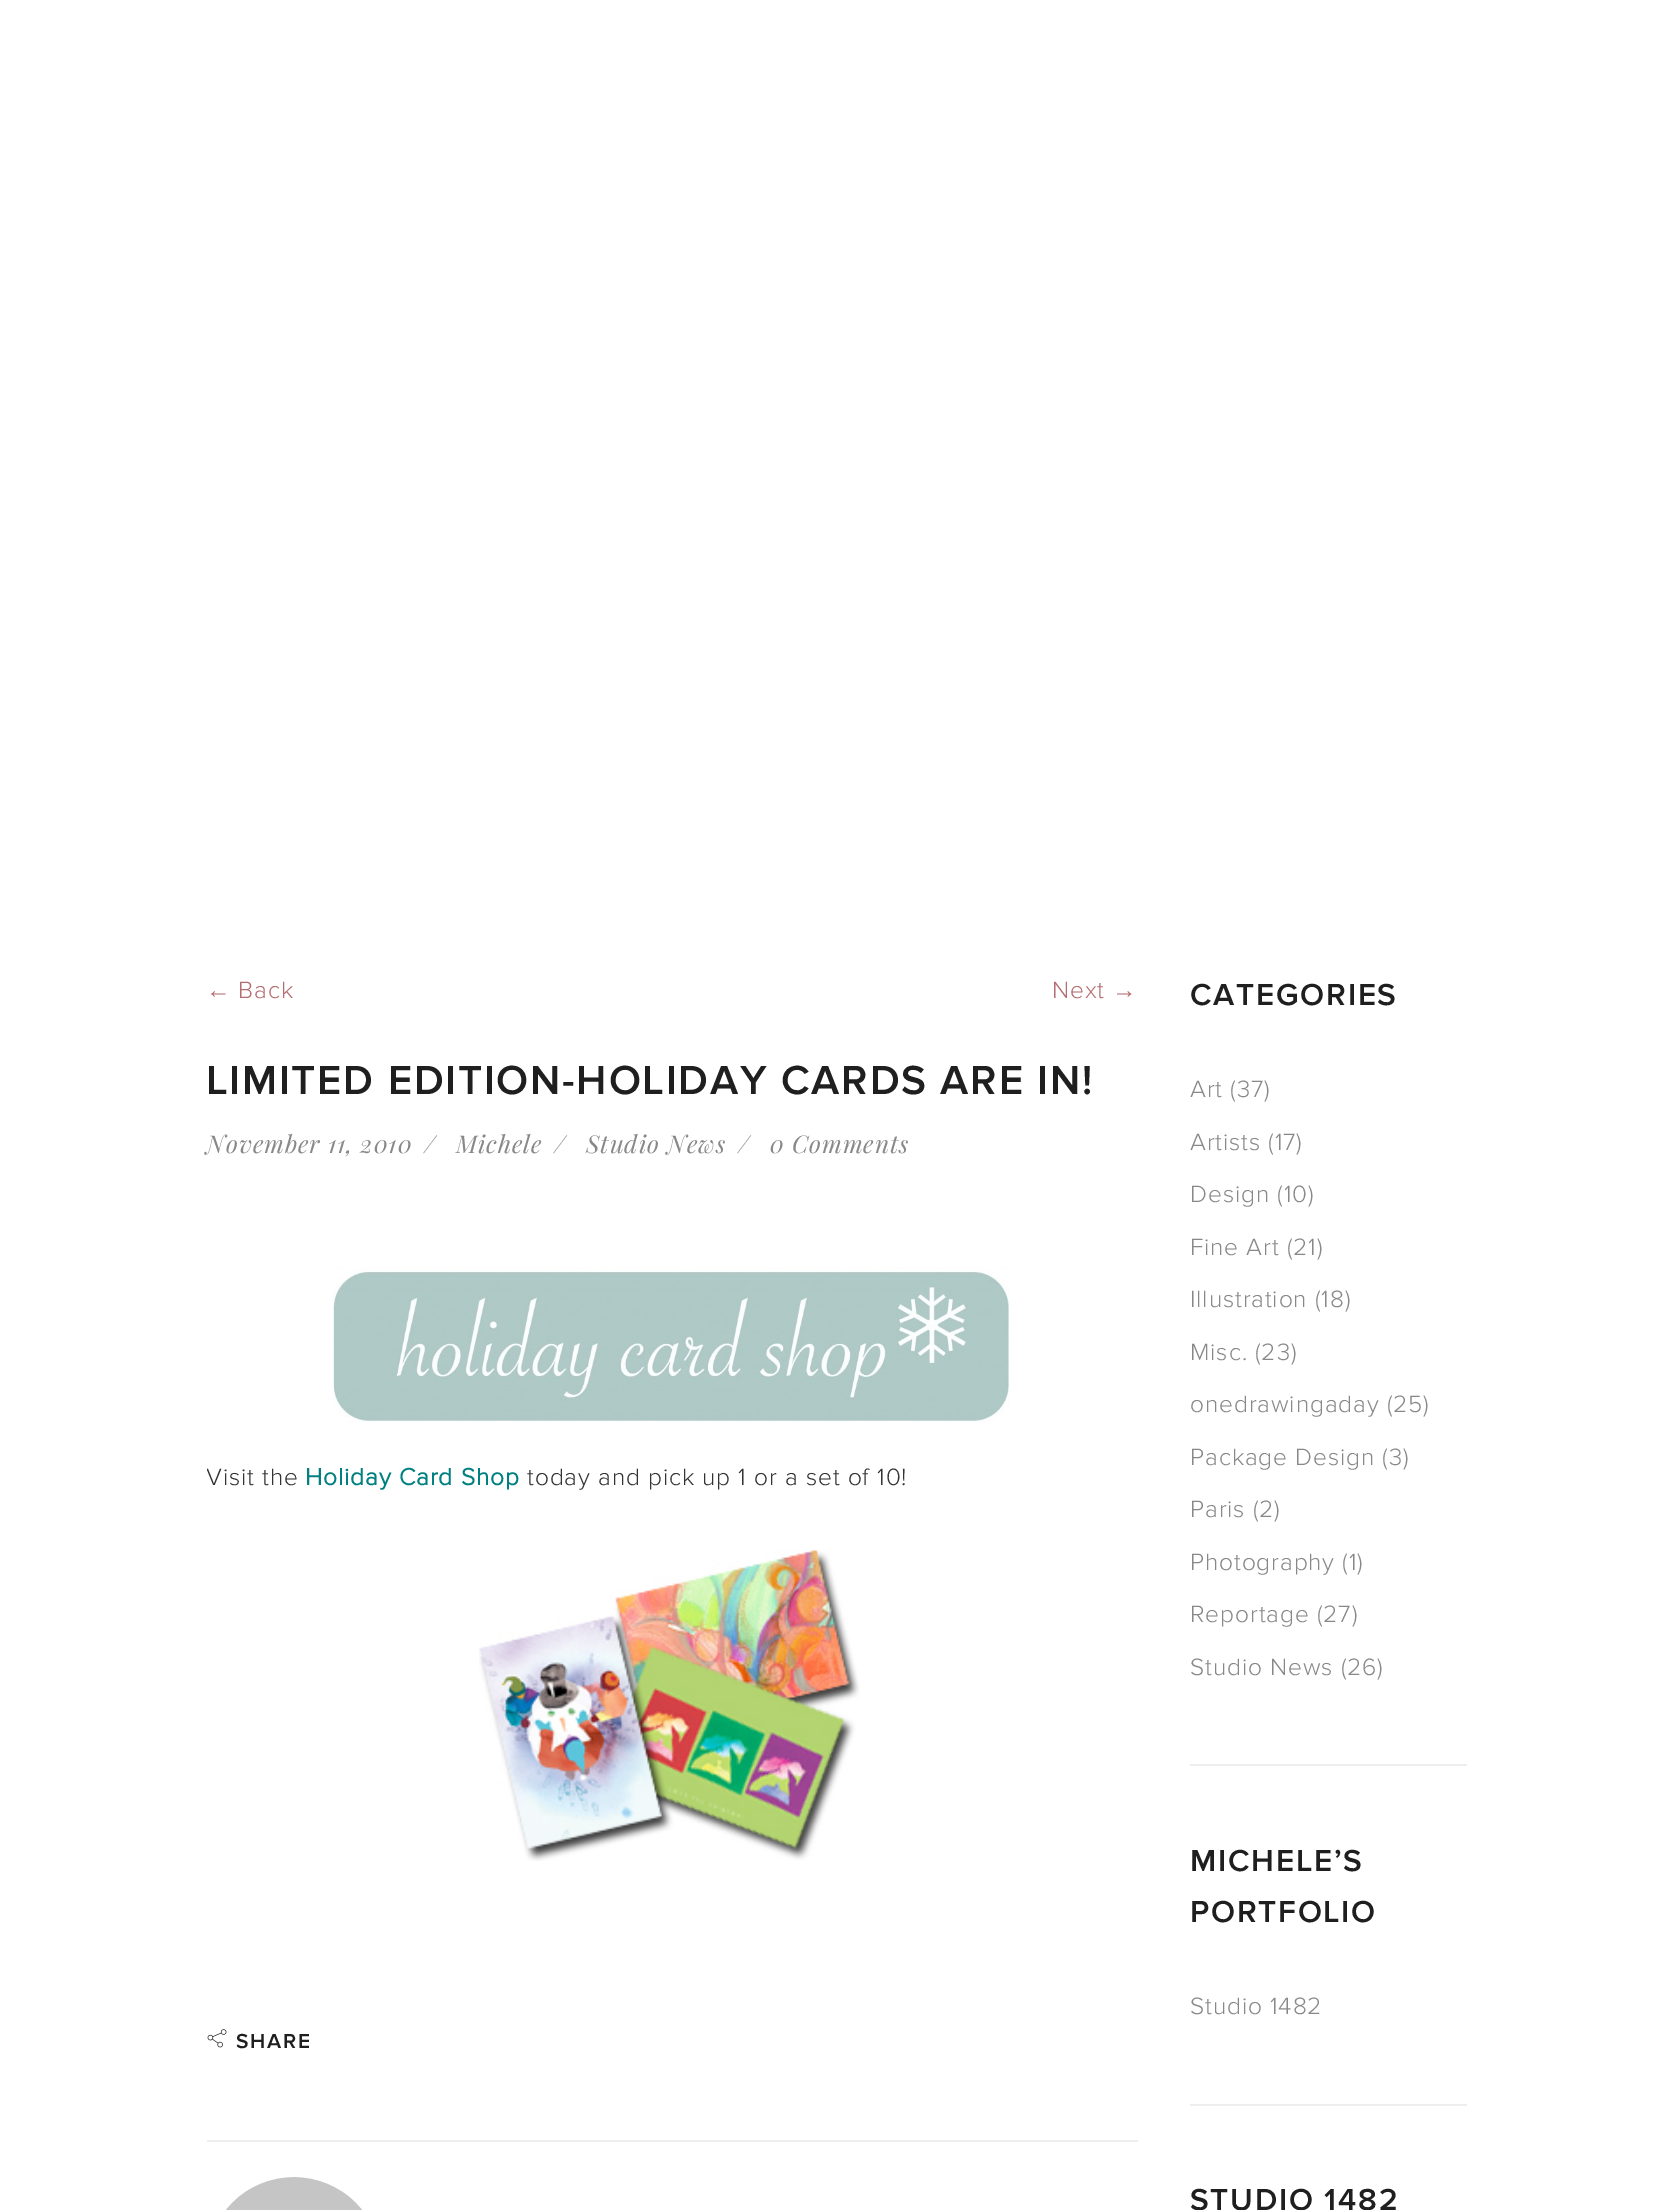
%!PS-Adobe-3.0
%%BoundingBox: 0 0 1670 2210
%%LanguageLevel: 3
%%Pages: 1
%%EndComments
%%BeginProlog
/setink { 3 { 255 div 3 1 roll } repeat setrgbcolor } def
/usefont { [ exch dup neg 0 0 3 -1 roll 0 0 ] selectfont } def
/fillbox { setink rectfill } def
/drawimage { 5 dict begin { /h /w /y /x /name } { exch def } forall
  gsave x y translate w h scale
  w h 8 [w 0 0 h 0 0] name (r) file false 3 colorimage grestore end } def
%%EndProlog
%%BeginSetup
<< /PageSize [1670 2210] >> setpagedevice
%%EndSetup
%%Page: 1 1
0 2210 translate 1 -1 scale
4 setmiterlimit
0 0 1670 2210 255 255 255 fillbox
/LiberationSerif-Regular 24.5 usefont
180 109 112 setink
206 998 moveto 0.9 0 (←) ashow
/ProximaNova-Light 24.5 usefont
238 998 moveto 0.9 0 (Back) ashow
1052 998 moveto 0.9 0 (Next) ashow
/LiberationSerif-Regular 24.5 usefont
1112 998 moveto 0.9 0 (→) ashow
/ProximaNova-SemiBold 42 usefont
31 31 31 setink
206 1094 moveto 1.75 0 (LIMITED EDITION-HOLIDAY CARDS ARE IN!) ashow
/PlayfairDisplay-Italic 24.5 usefont
136 136 136 setink
206 1153 moveto 0.9 0 (November 11, 2010) ashow
424 1153 moveto 0.9 0 (/) ashow
456 1153 moveto 0.9 0 (Michele) ashow
554 1153 moveto 0.9 0 (/) ashow
586 1153 moveto 0.9 0 (Studio News) ashow
738 1153 moveto 0.9 0 (/) ashow
770 1153 moveto 0.9 0 (0 Comments) ashow
(assets/img1.rgb) 332 1267 678 155 drawimage
gsave
207 1236 931 735 rectclip
/ProximaNova-Light 24.5 usefont
51 51 51 setink
206 1485 moveto 0.9 0 (Visit the) ashow
grestore
/ProximaNova-Bold 24.5 usefont
0 128 128 setink
305 1485 moveto 0.9 0 (Holiday Card Shop) ashow
/ProximaNova-Light 24.5 usefont
51 51 51 setink
527 1485 moveto 0.9 0 (today and pick up 1 or a set of 10!) ashow
(assets/img2.rgb) 479 1550 381 311 drawimage
207 2140 931 2 238 238 238 fillbox
(assets/img3.rgb) 207 2029 20 19 drawimage
/ProximaNova-SemiBold 21 usefont
31 31 31 setink
236 2048 moveto 1.75 0 (SHARE) ashow
(assets/img4.rgb) 226 2177 136 33 drawimage
1190 1764 277 2 238 238 238 fillbox
/ProximaNova-SemiBold 31.5 usefont
31 31 31 setink
1190 1005 moveto 1.75 0 (CATEGORIES) ashow
/ProximaNova-Light 24.5 usefont
136 136 136 setink
1190 1097 moveto 0.9 0 (Art \(37\)) ashow
1190 1150 moveto 0.9 0 (Artists \(17\)) ashow
1190 1202 moveto 0.9 0 (Design \(10\)) ashow
1190 1255 moveto 0.9 0 (Fine Art \(21\)) ashow
1190 1307 moveto 0.9 0 (Illustration \(18\)) ashow
1190 1360 moveto 0.9 0 (Misc. \(23\)) ashow
1190 1412 moveto 0.9 0 (onedrawingaday \(25\)) ashow
1190 1465 moveto 0.9 0 (Package Design \(3\)) ashow
1190 1517 moveto 0.9 0 (Paris \(2\)) ashow
1190 1570 moveto 0.9 0 (Photography \(1\)) ashow
1190 1622 moveto 0.9 0 (Reportage \(27\)) ashow
1190 1675 moveto 0.9 0 (Studio News \(26\)) ashow
1190 2104 277 2 238 238 238 fillbox
/ProximaNova-SemiBold 31.5 usefont
31 31 31 setink
1190 1871 moveto 1.75 0 (MICHELE’S) ashow
1190 1922 moveto 1.75 0 (PORTFOLIO) ashow
/ProximaNova-Light 24.5 usefont
136 136 136 setink
1190 2014 moveto 0.9 0 (Studio 1482) ashow
/ProximaNova-SemiBold 31.5 usefont
31 31 31 setink
1190 2210 moveto 1.75 0 (STUDIO 1482) ashow
showpage
%%EOF
